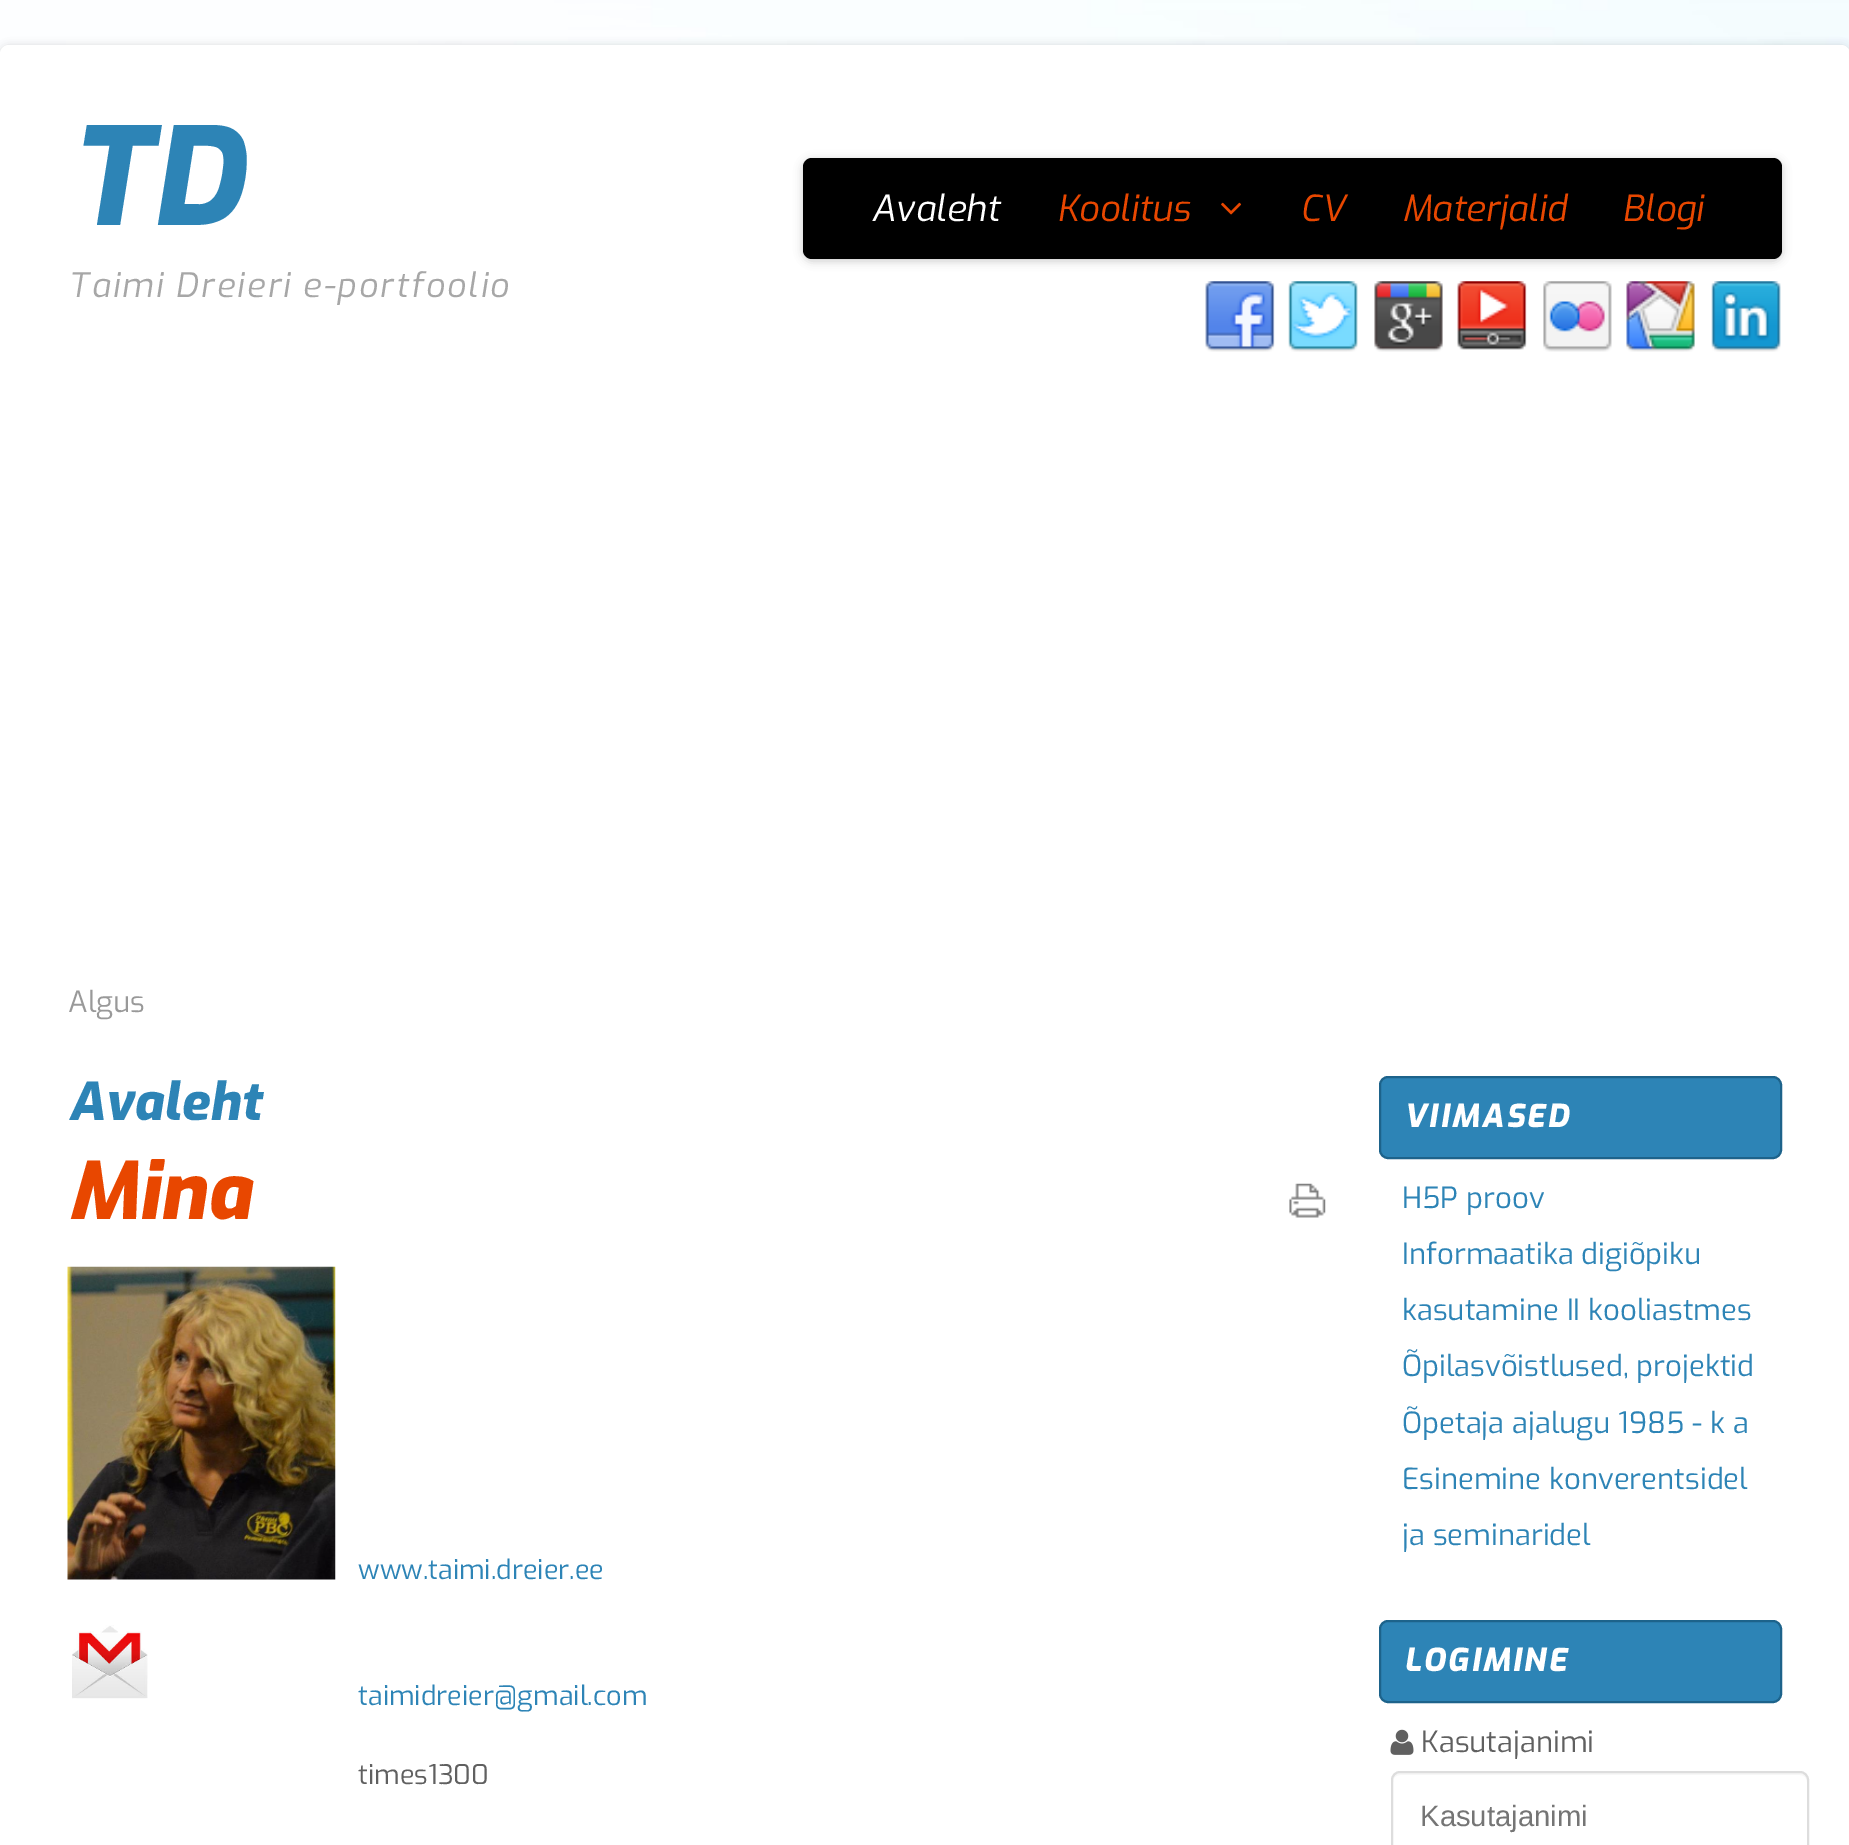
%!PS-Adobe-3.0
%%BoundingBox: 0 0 1849 1845
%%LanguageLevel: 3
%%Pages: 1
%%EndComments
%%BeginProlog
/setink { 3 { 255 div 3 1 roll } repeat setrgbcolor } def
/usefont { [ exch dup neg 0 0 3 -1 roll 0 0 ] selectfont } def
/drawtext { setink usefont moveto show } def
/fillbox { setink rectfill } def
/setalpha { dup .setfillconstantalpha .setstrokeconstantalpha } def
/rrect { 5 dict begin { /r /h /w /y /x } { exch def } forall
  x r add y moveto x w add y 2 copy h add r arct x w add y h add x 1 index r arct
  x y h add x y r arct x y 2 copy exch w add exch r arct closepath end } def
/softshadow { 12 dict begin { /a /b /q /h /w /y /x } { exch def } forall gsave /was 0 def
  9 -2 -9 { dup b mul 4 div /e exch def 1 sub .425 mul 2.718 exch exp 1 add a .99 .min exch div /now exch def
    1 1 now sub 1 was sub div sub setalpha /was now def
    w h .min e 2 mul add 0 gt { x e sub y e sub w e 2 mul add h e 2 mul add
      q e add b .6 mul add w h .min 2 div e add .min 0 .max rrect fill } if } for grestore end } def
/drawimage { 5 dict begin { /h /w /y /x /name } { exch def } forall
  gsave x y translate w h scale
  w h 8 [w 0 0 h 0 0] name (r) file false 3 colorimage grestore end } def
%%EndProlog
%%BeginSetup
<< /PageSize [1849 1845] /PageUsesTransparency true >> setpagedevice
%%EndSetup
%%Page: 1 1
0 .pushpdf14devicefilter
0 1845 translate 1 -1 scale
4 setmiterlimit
0 0 1849 1845 255 255 255 fillbox
(assets/img1.rgb) 0 0 1849 54 drawimage
0 0 0 setink
0 47 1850 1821 9 4.5 0.2 softshadow
255 255 255 setink
0 45 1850 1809 9 rrect fill
(TD) 68 225 /Exo-ExtraBoldItalic 135 45 132 182 drawtext
/Exo-Italic 33.75 usefont
167 167 167 setink
68 297 moveto 2.25 0 (Taimi Dreieri e-portfoolio) ashow
0 0 0 setink
803 160 979 101 9 4.5 0.2 softshadow
803 158 979 101 9 rrect fill
(Avaleht) 871 221 /Exo-Italic 36 255 255 255 drawtext
(Koolitus) 1057 221 /Exo-Italic 36 232 71 0 drawtext
(assets/img2.rgb) 1221 202 21 13 drawimage
(CV) 1300 221 /Exo-Italic 36 232 71 0 drawtext
(Materjalid) 1402 221 /Exo-Italic 36 232 71 0 drawtext
(Blogi) 1622 221 /Exo-Italic 36 232 71 0 drawtext
(assets/img3.rgb) 1205 281 70 71 drawimage
(assets/img4.rgb) 1288 281 70 71 drawimage
(assets/img5.rgb) 1374 281 69 71 drawimage
(assets/img6.rgb) 1457 281 70 69 drawimage
(assets/img7.rgb) 1543 281 69 71 drawimage
(assets/img8.rgb) 1626 281 69 71 drawimage
(assets/img9.rgb) 1711 281 70 71 drawimage
(Algus) 68 1012 /Exo-Regular 29.25 153 153 153 drawtext
(Avaleht) 68 1120 /Exo-ExtraBoldItalic 52 45 132 182 drawtext
(Mina) 68 1219 /Exo-ExtraBoldItalic 79 232 71 0 drawtext
(assets/img10.rgb) 1289 1183 37 35 drawimage
(assets/img11.rgb) 67 1266 269 314 drawimage
(www.taimi.dreier.ee) 358 1579 /Exo-Regular 27 45 132 182 drawtext
(assets/img12.rgb) 72 1625 76 74 drawimage
(taimidreier@gmail.com) 358 1705 /Exo-Regular 27 45 132 182 drawtext
(times1300) 358 1784 /Exo-Regular 27 96 96 96 drawtext
45 132 182 setink
1380 1077 401 81 8 rrect gsave fill grestore
29 99 139 setink
2 setlinewidth
stroke
/Exo-ExtraBoldItalic 31.5 usefont
255 255 255 setink
1404 1127 moveto 2.25 0 (VIIMASED) ashow
(H5P proov) 1402 1208 /Exo-Regular 29.25 45 132 182 drawtext
(Informaatika digiõpiku) 1402 1264 /Exo-Regular 29.25 45 132 182 drawtext
(kasutamine II kooliastmes) 1402 1320 /Exo-Regular 29.25 45 132 182 drawtext
(Õpilasvõistlused, projektid) 1402 1376 /Exo-Regular 29.25 45 132 182 drawtext
(Õpetaja ajalugu 1985 - k a) 1402 1433 /Exo-Regular 29.25 45 132 182 drawtext
(Esinemine konverentsidel) 1402 1489 /Exo-Regular 29.25 45 132 182 drawtext
(ja seminaridel) 1402 1545 /Exo-Regular 29.25 45 132 182 drawtext
1380 1621 401 81 8 rrect gsave fill grestore
29 99 139 setink
stroke
/Exo-ExtraBoldItalic 31.5 usefont
255 255 255 setink
1404 1671 moveto 2.25 0 (LOGIMINE) ashow
(assets/img13.rgb) 1390 1729 24 26 drawimage
(Kasutajanimi) 1421 1752 /Exo-Regular 29.25 96 96 96 drawtext
247 247 247 setink
1400 1775 moveto 1800 1775 lineto 1804 1775 1807 1778 1807 1782 curveto 1807 1778 1805 1773 1800 1773 curveto 1400 1773 lineto 1395 1773 1393 1778 1393 1782 curveto 1393 1778 1396 1775 1400 1775 curveto closepath fill
221 221 221 setink
1392 1772 416 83 8 rrect stroke
(Kasutajanimi) 1420 1826 /LiberationSans-Regular 29.25 117 117 117 drawtext
.poppdf14devicefilter showpage
%%EOF
